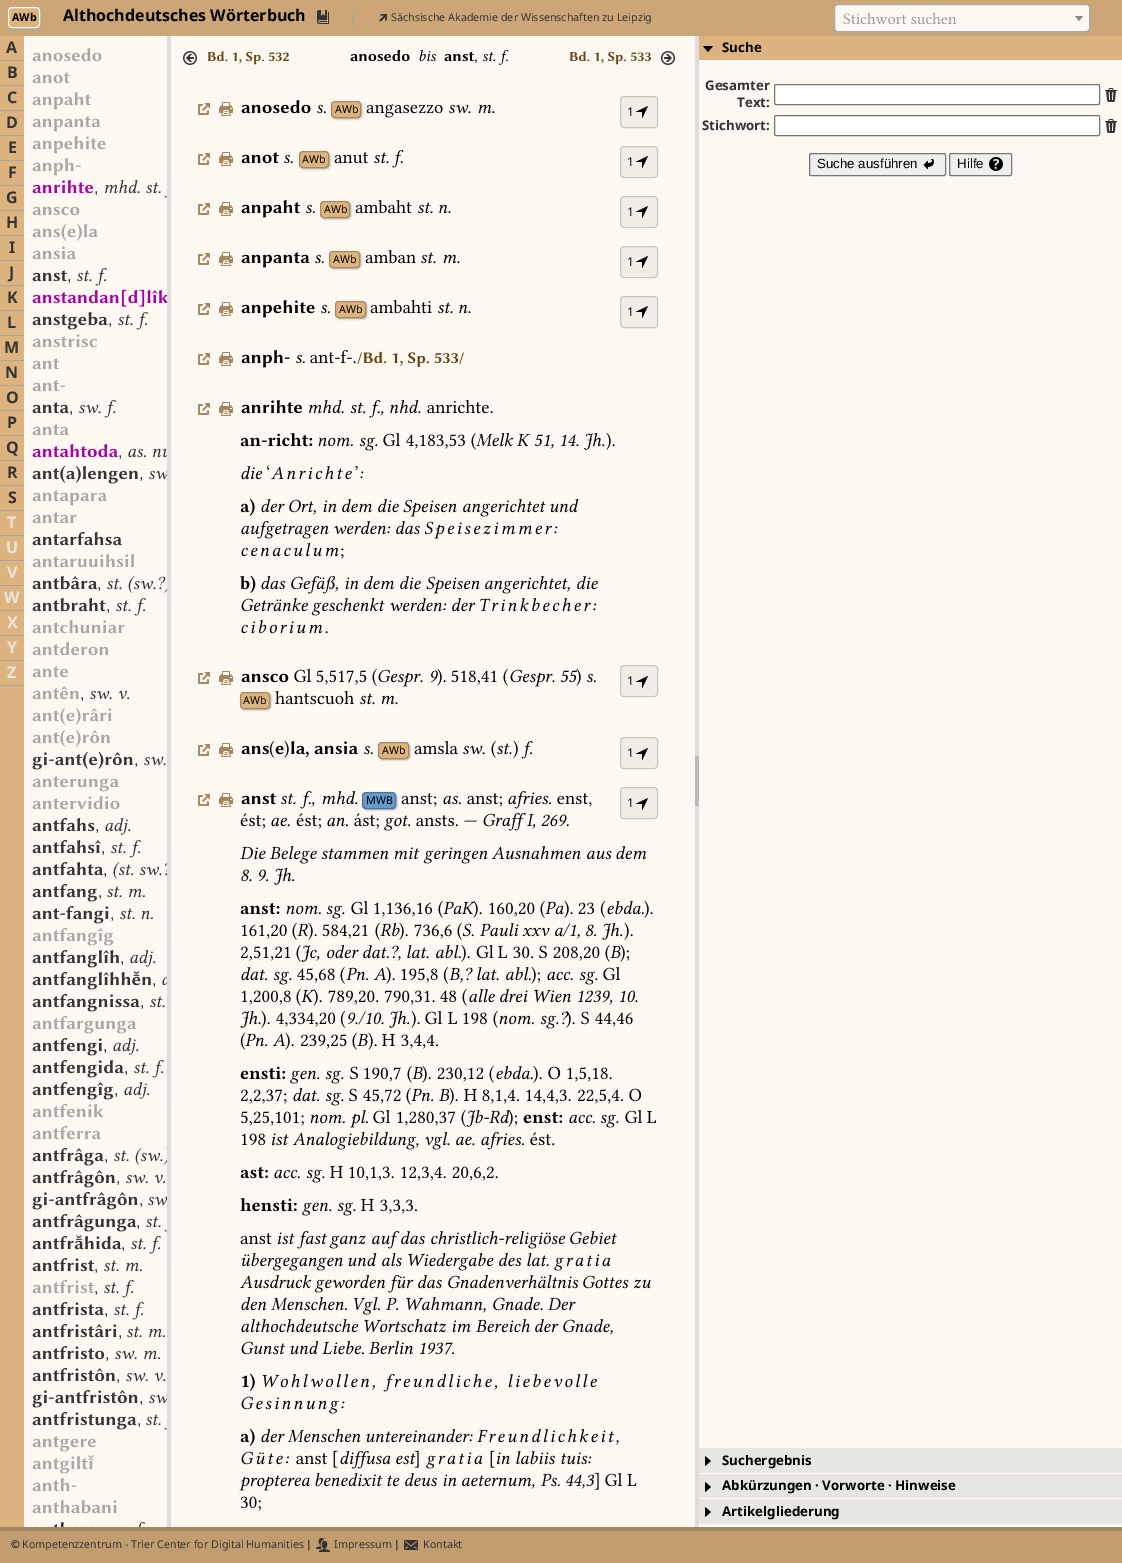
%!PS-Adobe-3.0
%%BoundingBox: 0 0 1122 1563
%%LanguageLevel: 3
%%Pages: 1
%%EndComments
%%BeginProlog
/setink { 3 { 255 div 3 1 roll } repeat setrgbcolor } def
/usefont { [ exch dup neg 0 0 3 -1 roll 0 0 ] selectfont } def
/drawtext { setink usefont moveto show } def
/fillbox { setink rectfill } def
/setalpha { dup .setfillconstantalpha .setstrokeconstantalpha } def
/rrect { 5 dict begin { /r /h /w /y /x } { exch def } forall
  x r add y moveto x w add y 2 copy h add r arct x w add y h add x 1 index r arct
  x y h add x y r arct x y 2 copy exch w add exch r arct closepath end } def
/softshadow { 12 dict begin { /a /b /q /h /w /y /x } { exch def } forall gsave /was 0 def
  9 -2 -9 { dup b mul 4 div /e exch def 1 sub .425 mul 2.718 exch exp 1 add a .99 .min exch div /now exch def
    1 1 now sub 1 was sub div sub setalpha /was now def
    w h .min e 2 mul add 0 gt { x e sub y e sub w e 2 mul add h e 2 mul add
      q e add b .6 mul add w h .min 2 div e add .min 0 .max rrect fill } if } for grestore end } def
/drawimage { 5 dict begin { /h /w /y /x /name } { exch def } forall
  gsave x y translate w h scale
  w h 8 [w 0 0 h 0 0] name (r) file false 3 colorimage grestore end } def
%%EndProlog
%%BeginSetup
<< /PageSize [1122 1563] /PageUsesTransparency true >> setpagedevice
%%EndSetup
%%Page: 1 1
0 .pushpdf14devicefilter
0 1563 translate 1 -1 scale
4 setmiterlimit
0 0 1122 1563 204 166 118 fillbox
168 166 161 setink
9 8 32 21 4 1 1 softshadow
221 180 128 setink
8.5 7.5 31 20 3.5 rrect gsave fill grestore
253 249 242 setink
stroke
(AWb) 12 21 /NotoSans-Bold 10.7 0 0 0 drawtext
(Althochdeutsches Wörterbuch) 63 21 /NotoSans-Bold 16 0 0 0 drawtext
(assets/img1.rgb) 317 10 12 14 drawimage
352 10 1 17 168 166 161 fillbox
(assets/img2.rgb) 379 14 8 8 drawimage
(Sächsische Akademie der Wissenschaften zu Leipzig) 391 21 /NotoSans-Regular 10.7 51 51 51 drawtext
253 249 242 setink
834.5 4.5 255 27 3.5 rrect gsave fill grestore
170 170 170 setink
stroke
(assets/img3.rgb) 843 12 114 13 drawimage
136 136 136 setink
1075 16 moveto 1083 16 lineto 1079 21 lineto closepath fill
167 36 4 1491 221 221 221 fillbox
695 36 4 1491 221 221 221 fillbox
695 756 4 50 187 187 187 fillbox
0 36 24 1491 221 180 128 fillbox
0 60 24 1 168 166 161 fillbox
(A) 6 53 /NotoSans-Bold 16 51 51 51 drawtext
0 85 24 1 168 166 161 fillbox
(B) 7 78 /NotoSans-Bold 16 51 51 51 drawtext
0 110 24 1 168 166 161 fillbox
(C) 7 103 /NotoSans-Bold 16 51 51 51 drawtext
0 135 24 1 168 166 161 fillbox
(D) 6 128 /NotoSans-Bold 16 51 51 51 drawtext
0 160 24 1 168 166 161 fillbox
(E) 8 153 /NotoSans-Bold 16 51 51 51 drawtext
0 185 24 1 168 166 161 fillbox
(F) 8 178 /NotoSans-Bold 16 51 51 51 drawtext
0 210 24 1 168 166 161 fillbox
(G) 6 203 /NotoSans-Bold 16 51 51 51 drawtext
0 235 24 1 168 166 161 fillbox
(H) 6 228 /NotoSans-Bold 16 51 51 51 drawtext
0 260 24 1 168 166 161 fillbox
(I) 9 253 /NotoSans-Bold 16 51 51 51 drawtext
0 285 24 1 168 166 161 fillbox
(J) 9 278 /NotoSans-Bold 16 51 51 51 drawtext
0 310 24 1 168 166 161 fillbox
(K) 7 303 /NotoSans-Bold 16 51 51 51 drawtext
0 335 24 1 168 166 161 fillbox
(L) 7 328 /NotoSans-Bold 16 51 51 51 drawtext
0 360 24 1 168 166 161 fillbox
(M) 4 353 /NotoSans-Bold 16 51 51 51 drawtext
0 385 24 1 168 166 161 fillbox
(N) 5 378 /NotoSans-Bold 16 51 51 51 drawtext
0 410 24 1 168 166 161 fillbox
(O) 6 403 /NotoSans-Bold 16 51 51 51 drawtext
0 435 24 1 168 166 161 fillbox
(P) 7 428 /NotoSans-Bold 16 51 51 51 drawtext
0 460 24 1 168 166 161 fillbox
(Q) 6 453 /NotoSans-Bold 16 51 51 51 drawtext
0 485 24 1 168 166 161 fillbox
(R) 7 478 /NotoSans-Bold 16 51 51 51 drawtext
0 510 24 1 168 166 161 fillbox
(S) 8 503 /NotoSans-Bold 16 51 51 51 drawtext
0 535 24 1 168 166 161 fillbox
(T) 7 528 /NotoSans-Bold 16 232 230 225 drawtext
0 560 24 1 168 166 161 fillbox
(U) 6 553 /NotoSans-Bold 16 232 230 225 drawtext
0 585 24 1 168 166 161 fillbox
(V) 7 578 /NotoSans-Bold 16 232 230 225 drawtext
0 610 24 1 168 166 161 fillbox
(W) 4 603 /NotoSans-Bold 16 232 230 225 drawtext
0 635 24 1 168 166 161 fillbox
(X) 7 628 /NotoSans-Bold 16 232 230 225 drawtext
0 660 24 1 168 166 161 fillbox
(Y) 7 653 /NotoSans-Bold 16 232 230 225 drawtext
0 685 24 1 168 166 161 fillbox
(Z) 7 678 /NotoSans-Bold 16 232 230 225 drawtext
24 36 143 1491 253 249 242 fillbox
(assets/img4.rgb) 32 48 70 14 drawimage
(assets/img5.rgb) 32 72 38 12 drawimage
(assets/img6.rgb) 32 92 59 18 drawimage
(assets/img7.rgb) 32 116 69 16 drawimage
(assets/img8.rgb) 32 136 74 18 drawimage
(assets/img9.rgb) 32 158 49 18 drawimage
(assets/img10.rgb) 32 180 61 14 drawimage
(,) 94 193 /LiberationSans-Regular 16 51 51 51 drawtext
(assets/img11.rgb) 105 180 62 18 drawimage
(assets/img12.rgb) 32 206 48 10 drawimage
(assets/img13.rgb) 32 224 66 17 drawimage
(assets/img14.rgb) 32 246 44 14 drawimage
(assets/img15.rgb) 32 270 35 12 drawimage
(,) 67 281 /LiberationSans-Regular 16 51 51 51 drawtext
(assets/img16.rgb) 77 268 30 18 drawimage
(assets/img17.rgb) 32 289 135 18 drawimage
(assets/img18.rgb) 32 312 76 18 drawimage
(,) 108 325 /LiberationSans-Regular 16 51 51 51 drawtext
(assets/img16.rgb) 118 312 30 18 drawimage
(assets/img19.rgb) 32 334 65 14 drawimage
(assets/img20.rgb) 32 358 28 12 drawimage
(assets/img21.rgb) 32 380 33 12 drawimage
(assets/img22.rgb) 32 402 37 12 drawimage
(,) 69 413 /LiberationSans-Regular 16 51 51 51 drawtext
(assets/img23.rgb) 79 400 37 18 drawimage
(assets/img24.rgb) 32 424 37 12 drawimage
(assets/img25.rgb) 32 444 86 14 drawimage
(,) 118 457 /LiberationSans-Regular 16 51 51 51 drawtext
(assets/img26.rgb) 128 448 39 10 drawimage
(assets/img27.rgb) 32 465 106 19 drawimage
(,) 139 479 /LiberationSans-Regular 16 51 51 51 drawtext
(assets/img28.rgb) 149 470 18 10 drawimage
(assets/img29.rgb) 32 490 75 16 drawimage
(assets/img30.rgb) 32 512 45 12 drawimage
(assets/img31.rgb) 32 532 90 14 drawimage
(assets/img32.rgb) 32 554 102 14 drawimage
(assets/img33.rgb) 32 576 66 14 drawimage
(,) 97 589 /LiberationSans-Regular 16 51 51 51 drawtext
(assets/img34.rgb) 107 575 60 18 drawimage
(assets/img35.rgb) 32 598 74 14 drawimage
(,) 106 611 /LiberationSans-Regular 16 51 51 51 drawtext
(assets/img16.rgb) 116 598 30 18 drawimage
(assets/img36.rgb) 32 620 93 14 drawimage
(assets/img37.rgb) 32 642 77 14 drawimage
(assets/img38.rgb) 32 666 36 12 drawimage
(assets/img39.rgb) 32 686 47 14 drawimage
(,) 80 699 /LiberationSans-Regular 16 51 51 51 drawtext
(assets/img40.rgb) 90 690 40 10 drawimage
(assets/img41.rgb) 32 708 80 17 drawimage
(assets/img42.rgb) 32 730 78 17 drawimage
(assets/img43.rgb) 32 751 101 19 drawimage
(,) 134 765 /LiberationSans-Regular 16 51 51 51 drawtext
(assets/img44.rgb) 144 756 22 10 drawimage
(assets/img45.rgb) 32 776 87 16 drawimage
(assets/img46.rgb) 32 796 88 14 drawimage
(assets/img47.rgb) 32 818 63 14 drawimage
(,) 95 831 /LiberationSans-Regular 16 51 51 51 drawtext
(assets/img48.rgb) 105 818 26 17 drawimage
(assets/img49.rgb) 32 840 69 14 drawimage
(,) 101 853 /LiberationSans-Regular 16 51 51 51 drawtext
(assets/img16.rgb) 111 840 30 18 drawimage
(assets/img50.rgb) 32 862 72 14 drawimage
(,) 103 875 /LiberationSans-Regular 16 51 51 51 drawtext
(assets/img51.rgb) 113 861 54 18 drawimage
(assets/img52.rgb) 32 884 65 18 drawimage
(,) 98 897 /LiberationSans-Regular 16 51 51 51 drawtext
(assets/img53.rgb) 107 886 38 12 drawimage
(assets/img54.rgb) 32 906 77 18 drawimage
(,) 110 919 /LiberationSans-Regular 16 51 51 51 drawtext
(assets/img55.rgb) 120 908 33 12 drawimage
(assets/img56.rgb) 32 928 82 18 drawimage
(assets/img57.rgb) 32 950 87 18 drawimage
(,) 120 963 /LiberationSans-Regular 16 51 51 51 drawtext
(assets/img48.rgb) 130 950 26 17 drawimage
(assets/img58.rgb) 32 971 119 19 drawimage
(,) 152 985 /LiberationSans-Regular 16 51 51 51 drawtext
(assets/img59.rgb) 162 976 5 10 drawimage
(assets/img60.rgb) 32 994 108 18 drawimage
(,) 140 1007 /LiberationSans-Regular 16 51 51 51 drawtext
(assets/img61.rgb) 150 996 15 12 drawimage
(assets/img62.rgb) 32 1016 105 18 drawimage
(assets/img63.rgb) 32 1038 70 18 drawimage
(,) 103 1051 /LiberationSans-Regular 16 51 51 51 drawtext
(assets/img48.rgb) 113 1038 26 17 drawimage
(assets/img64.rgb) 32 1060 92 18 drawimage
(,) 124 1073 /LiberationSans-Regular 16 51 51 51 drawtext
(assets/img16.rgb) 134 1060 30 18 drawimage
(assets/img65.rgb) 32 1082 82 18 drawimage
(,) 114 1095 /LiberationSans-Regular 16 51 51 51 drawtext
(assets/img48.rgb) 124 1082 26 17 drawimage
(assets/img66.rgb) 32 1104 72 14 drawimage
(assets/img67.rgb) 32 1126 69 14 drawimage
(assets/img68.rgb) 32 1148 72 18 drawimage
(,) 104 1161 /LiberationSans-Regular 16 51 51 51 drawtext
(assets/img69.rgb) 114 1147 53 18 drawimage
(assets/img70.rgb) 32 1170 83 18 drawimage
(,) 116 1183 /LiberationSans-Regular 16 51 51 51 drawtext
(assets/img40.rgb) 126 1174 40 10 drawimage
(assets/img71.rgb) 32 1192 106 18 drawimage
(,) 139 1205 /LiberationSans-Regular 16 51 51 51 drawtext
(assets/img72.rgb) 148 1196 19 10 drawimage
(assets/img73.rgb) 32 1214 105 18 drawimage
(,) 136 1227 /LiberationSans-Regular 16 51 51 51 drawtext
(assets/img74.rgb) 146 1216 21 16 drawimage
(assets/img75.rgb) 32 1235 90 15 drawimage
(,) 121 1249 /LiberationSans-Regular 16 51 51 51 drawtext
(assets/img16.rgb) 131 1236 30 18 drawimage
(assets/img76.rgb) 32 1258 63 14 drawimage
(,) 94 1271 /LiberationSans-Regular 16 51 51 51 drawtext
(assets/img53.rgb) 104 1260 38 12 drawimage
(assets/img77.rgb) 32 1280 62 14 drawimage
(,) 94 1293 /LiberationSans-Regular 16 51 51 51 drawtext
(assets/img16.rgb) 104 1280 30 18 drawimage
(assets/img78.rgb) 32 1302 72 14 drawimage
(,) 104 1315 /LiberationSans-Regular 16 51 51 51 drawtext
(assets/img16.rgb) 114 1302 30 18 drawimage
(assets/img79.rgb) 32 1324 85 14 drawimage
(,) 118 1337 /LiberationSans-Regular 16 51 51 51 drawtext
(assets/img53.rgb) 127 1326 38 12 drawimage
(assets/img80.rgb) 32 1346 73 14 drawimage
(,) 105 1359 /LiberationSans-Regular 16 51 51 51 drawtext
(assets/img81.rgb) 115 1350 45 10 drawimage
(assets/img82.rgb) 32 1368 83 14 drawimage
(,) 116 1381 /LiberationSans-Regular 16 51 51 51 drawtext
(assets/img40.rgb) 126 1372 40 10 drawimage
(assets/img83.rgb) 32 1390 106 18 drawimage
(,) 139 1403 /LiberationSans-Regular 16 51 51 51 drawtext
(assets/img28.rgb) 149 1394 18 10 drawimage
(assets/img84.rgb) 32 1412 105 18 drawimage
(,) 137 1425 /LiberationSans-Regular 16 51 51 51 drawtext
(assets/img74.rgb) 146 1414 21 16 drawimage
(assets/img85.rgb) 32 1436 64 16 drawimage
(assets/img86.rgb) 32 1455 62 19 drawimage
(assets/img87.rgb) 32 1478 45 14 drawimage
(assets/img88.rgb) 32 1500 85 14 drawimage
(assets/img89.rgb) 35 1522 60 5 drawimage
(assets/img90.rgb) 111 1522 34 5 drawimage
171 36 524 1491 253 249 242 fillbox
(assets/img91.rgb) 183 51 14 14 drawimage
(assets/img92.rgb) 208 51 81 14 drawimage
(assets/img93.rgb) 350 49 60 13 drawimage
(assets/img94.rgb) 419 49 18 13 drawimage
(assets/img95.rgb) 444 51 30 11 drawimage
(assets/img96.rgb) 474 59 3 4 drawimage
(assets/img97.rgb) 483 49 26 16 drawimage
(assets/img98.rgb) 570 51 81 14 drawimage
(assets/img99.rgb) 661 51 14 14 drawimage
(assets/img100.rgb) 198 103 12 12 drawimage
(assets/img101.rgb) 219 102 14 14 drawimage
(assets/img102.rgb) 241 100 70 14 drawimage
(assets/img103.rgb) 317 104 9 10 drawimage
168 166 161 setink
332 102 30 17 4 1 1 softshadow
221 180 128 setink
331.5 101.5 29 16 3.5 rrect gsave fill grestore
165 135 96 setink
stroke
(AWb) 335 113 /NotoSans-Regular 10.7 0 0 0 drawtext
(assets/img104.rgb) 366 104 77 14 drawimage
(assets/img105.rgb) 449 104 22 10 drawimage
(assets/img106.rgb) 478 104 17 10 drawimage
240 237 230 setink
620.5 96.5 37 31 3.5 rrect gsave fill grestore
200 198 193 setink
stroke
(1) 627 116 /NotoSans-Regular 12 0 0 0 drawtext
(assets/img107.rgb) 636 106 12 12 drawimage
(assets/img100.rgb) 198 153 12 12 drawimage
(assets/img101.rgb) 219 152 14 14 drawimage
(assets/img108.rgb) 241 152 38 12 drawimage
(assets/img103.rgb) 284 154 9 10 drawimage
168 166 161 setink
300 152 30 17 4 1 1 softshadow
221 180 128 setink
299.5 151.5 29 16 3.5 rrect gsave fill grestore
165 135 96 setink
stroke
(AWb) 302 163 /NotoSans-Regular 10.7 0 0 0 drawtext
(assets/img109.rgb) 334 152 35 12 drawimage
(assets/img110.rgb) 374 152 15 12 drawimage
(assets/img111.rgb) 392 150 12 18 drawimage
240 237 230 setink
620.5 146.5 37 31 3.5 rrect gsave fill grestore
200 198 193 setink
stroke
(1) 627 166 /NotoSans-Regular 12 0 0 0 drawtext
(assets/img107.rgb) 636 156 12 12 drawimage
(assets/img100.rgb) 198 203 12 12 drawimage
(assets/img101.rgb) 219 202 14 14 drawimage
(assets/img112.rgb) 241 200 59 18 drawimage
(assets/img103.rgb) 306 204 9 10 drawimage
168 166 161 setink
321 202 30 17 4 1 1 softshadow
221 180 128 setink
320.5 201.5 29 16 3.5 rrect gsave fill grestore
165 135 96 setink
stroke
(AWb) 324 213 /NotoSans-Regular 10.7 0 0 0 drawtext
(assets/img113.rgb) 355 200 57 14 drawimage
(assets/img110.rgb) 418 202 15 12 drawimage
(assets/img114.rgb) 439 204 12 10 drawimage
240 237 230 setink
620.5 196.5 37 31 3.5 rrect gsave fill grestore
200 198 193 setink
stroke
(1) 627 216 /NotoSans-Regular 12 0 0 0 drawtext
(assets/img107.rgb) 636 206 12 12 drawimage
(assets/img100.rgb) 198 253 12 12 drawimage
(assets/img101.rgb) 219 252 14 14 drawimage
(assets/img115.rgb) 241 252 69 16 drawimage
(assets/img103.rgb) 315 254 9 10 drawimage
168 166 161 setink
330 252 31 17 4 1 1 softshadow
221 180 128 setink
329.5 251.5 30 16 3.5 rrect gsave fill grestore
165 135 96 setink
stroke
(AWb) 333 263 /NotoSans-Regular 10.7 0 0 0 drawtext
(assets/img116.rgb) 365 250 51 14 drawimage
(assets/img110.rgb) 421 252 15 12 drawimage
(assets/img106.rgb) 443 254 17 10 drawimage
240 237 230 setink
620.5 246.5 37 31 3.5 rrect gsave fill grestore
200 198 193 setink
stroke
(1) 627 266 /NotoSans-Regular 12 0 0 0 drawtext
(assets/img107.rgb) 636 256 12 12 drawimage
(assets/img100.rgb) 198 303 12 12 drawimage
(assets/img101.rgb) 219 302 14 14 drawimage
(assets/img117.rgb) 241 300 74 18 drawimage
(assets/img103.rgb) 321 304 9 10 drawimage
168 166 161 setink
336 302 31 17 4 1 1 softshadow
221 180 128 setink
335.5 301.5 30 16 3.5 rrect gsave fill grestore
165 135 96 setink
stroke
(AWb) 339 313 /NotoSans-Regular 10.7 0 0 0 drawtext
(assets/img118.rgb) 370 300 62 14 drawimage
(assets/img110.rgb) 438 302 15 12 drawimage
(assets/img114.rgb) 459 304 12 10 drawimage
240 237 230 setink
620.5 296.5 37 31 3.5 rrect gsave fill grestore
200 198 193 setink
stroke
(1) 627 316 /NotoSans-Regular 12 0 0 0 drawtext
(assets/img107.rgb) 636 306 12 12 drawimage
(assets/img100.rgb) 198 353 12 12 drawimage
(assets/img101.rgb) 219 352 14 14 drawimage
(assets/img119.rgb) 241 350 49 18 drawimage
(assets/img103.rgb) 296 354 9 10 drawimage
(assets/img120.rgb) 310 350 46 14 drawimage
(assets/img121.rgb) 357 351 107 16 drawimage
(assets/img100.rgb) 198 403 12 12 drawimage
(assets/img101.rgb) 219 402 14 14 drawimage
(assets/img122.rgb) 241 400 61 14 drawimage
(assets/img123.rgb) 309 400 35 14 drawimage
(assets/img124.rgb) 350 402 16 12 drawimage
(assets/img111.rgb) 369 400 12 18 drawimage
(assets/img125.rgb) 380 411 4 5 drawimage
(assets/img126.rgb) 390 400 31 14 drawimage
(assets/img127.rgb) 427 400 66 14 drawimage
(assets/img128.rgb) 240 433 73 14 drawimage
(assets/img129.rgb) 318 437 35 10 drawimage
(assets/img130.rgb) 359 437 19 14 drawimage
(assets/img131.rgb) 383 433 18 14 drawimage
(assets/img132.rgb) 406 434 59 15 drawimage
(assets/img133.rgb) 471 432 5 18 drawimage
(assets/img134.rgb) 476 433 38 14 drawimage
(assets/img135.rgb) 517 433 14 13 drawimage
(assets/img136.rgb) 534 434 20 15 drawimage
(assets/img137.rgb) 561 434 18 13 drawimage
(assets/img138.rgb) 584 433 21 17 drawimage
(assets/img139.rgb) 606 432 9 18 drawimage
(assets/img140.rgb) 241 466 22 14 drawimage
(assets/img141.rgb) 267 465 3 5 drawimage
(assets/img142.rgb) 271 466 81 14 drawimage
(assets/img143.rgb) 355 466 3 5 drawimage
(assets/img144.rgb) 360 471 4 8 drawimage
(assets/img145.rgb) 240 498 15 18 drawimage
(assets/img146.rgb) 261 499 24 14 drawimage
(assets/img147.rgb) 289 499 27 16 drawimage
(assets/img148.rgb) 323 500 14 13 drawimage
(assets/img149.rgb) 342 499 30 14 drawimage
(assets/img150.rgb) 378 499 21 14 drawimage
(assets/img151.rgb) 403 499 54 18 drawimage
(assets/img152.rgb) 463 499 83 18 drawimage
(assets/img153.rgb) 550 499 29 14 drawimage
(assets/img154.rgb) 241 521 88 18 drawimage
(assets/img155.rgb) 334 521 57 14 drawimage
(assets/img156.rgb) 396 521 24 14 drawimage
(assets/img157.rgb) 425 521 133 18 drawimage
(assets/img158.rgb) 241 543 98 14 drawimage
(assets/img159.rgb) 341 548 3 11 drawimage
(assets/img160.rgb) 240 575 16 18 drawimage
(assets/img161.rgb) 261 576 25 14 drawimage
(assets/img162.rgb) 291 576 47 18 drawimage
(assets/img148.rgb) 345 577 14 13 drawimage
(assets/img149.rgb) 364 576 30 14 drawimage
(assets/img150.rgb) 400 576 21 14 drawimage
(assets/img151.rgb) 426 576 54 18 drawimage
(assets/img163.rgb) 485 576 85 18 drawimage
(assets/img150.rgb) 577 576 21 14 drawimage
(assets/img164.rgb) 241 598 67 14 drawimage
(assets/img165.rgb) 311 598 74 18 drawimage
(assets/img155.rgb) 390 598 57 14 drawimage
(assets/img166.rgb) 452 598 24 14 drawimage
(assets/img167.rgb) 480 598 117 14 drawimage
(assets/img168.rgb) 241 620 87 14 drawimage
(assets/img100.rgb) 198 672 12 12 drawimage
(assets/img101.rgb) 219 671 14 14 drawimage
(assets/img169.rgb) 241 673 48 10 drawimage
(assets/img131.rgb) 294 669 18 14 drawimage
(assets/img170.rgb) 316 670 51 15 drawimage
(assets/img133.rgb) 372 668 5 18 drawimage
(assets/img171.rgb) 378 669 45 18 drawimage
(assets/img172.rgb) 430 670 8 13 drawimage
(assets/img173.rgb) 437 668 9 18 drawimage
(assets/img174.rgb) 451 670 46 15 drawimage
(assets/img133.rgb) 503 668 5 18 drawimage
(assets/img171.rgb) 510 669 45 18 drawimage
(assets/img175.rgb) 560 670 18 13 drawimage
(assets/img176.rgb) 576 668 5 18 drawimage
(assets/img103.rgb) 587 673 9 10 drawimage
240 237 230 setink
620.5 665.5 37 31 3.5 rrect gsave fill grestore
200 198 193 setink
stroke
(1) 627 685 /NotoSans-Regular 12 0 0 0 drawtext
(assets/img107.rgb) 636 676 12 12 drawimage
168 166 161 setink
241 693 30 17 4 1 1 softshadow
221 180 128 setink
240.5 692.5 29 16 3.5 rrect gsave fill grestore
165 135 96 setink
stroke
(AWb) 243 704 /NotoSans-Regular 10.7 0 0 0 drawtext
(assets/img177.rgb) 275 691 79 14 drawimage
(assets/img110.rgb) 360 693 15 12 drawimage
(assets/img106.rgb) 381 695 17 10 drawimage
(assets/img100.rgb) 198 744 12 12 drawimage
(assets/img101.rgb) 219 743 14 14 drawimage
(assets/img178.rgb) 241 745 28 10 drawimage
(assets/img179.rgb) 269 740 6 18 drawimage
(assets/img180.rgb) 275 745 9 10 drawimage
(assets/img181.rgb) 284 740 5 18 drawimage
(assets/img182.rgb) 291 741 15 14 drawimage
(assets/img183.rgb) 305 751 4 7 drawimage
(assets/img184.rgb) 314 741 44 14 drawimage
(assets/img103.rgb) 364 745 9 10 drawimage
168 166 161 setink
379 743 31 17 4 1 1 softshadow
221 180 128 setink
378.5 742.5 30 16 3.5 rrect gsave fill grestore
165 135 96 setink
stroke
(AWb) 382 754 /NotoSans-Regular 10.7 0 0 0 drawtext
(assets/img185.rgb) 414 741 44 14 drawimage
(assets/img105.rgb) 463 745 22 10 drawimage
(assets/img133.rgb) 491 740 5 18 drawimage
(assets/img110.rgb) 497 743 15 12 drawimage
(assets/img181.rgb) 513 740 5 18 drawimage
(assets/img186.rgb) 521 741 12 18 drawimage
240 237 230 setink
620.5 737.5 37 31 3.5 rrect gsave fill grestore
200 198 193 setink
stroke
(1) 627 757 /NotoSans-Regular 12 0 0 0 drawtext
(assets/img107.rgb) 636 748 12 12 drawimage
(assets/img100.rgb) 198 794 12 12 drawimage
(assets/img101.rgb) 219 793 14 14 drawimage
(assets/img187.rgb) 241 793 35 12 drawimage
(assets/img110.rgb) 281 793 15 12 drawimage
(assets/img111.rgb) 300 791 12 18 drawimage
(assets/img125.rgb) 311 802 4 5 drawimage
(assets/img188.rgb) 322 791 36 14 drawimage
168 166 161 setink
363 793 34 17 4 1 1 softshadow
102 153 204 setink
362.5 792.5 33 16 3.5 rrect gsave fill grestore
76 114 153 setink
stroke
(MWB) 366 804 /NotoSans-Regular 10.7 0 0 0 drawtext
(assets/img189.rgb) 401 793 36 14 drawimage
(assets/img190.rgb) 443 795 18 10 drawimage
(assets/img191.rgb) 467 793 35 14 drawimage
(assets/img192.rgb) 508 791 43 18 drawimage
(assets/img193.rgb) 557 793 35 14 drawimage
240 237 230 setink
620.5 787.5 37 31 3.5 rrect gsave fill grestore
200 198 193 setink
stroke
(1) 627 807 /NotoSans-Regular 12 0 0 0 drawtext
(assets/img107.rgb) 636 798 12 12 drawimage
(assets/img194.rgb) 240 813 25 16 drawimage
(assets/img195.rgb) 271 817 19 10 drawimage
(assets/img194.rgb) 296 813 25 16 drawimage
(assets/img196.rgb) 327 817 21 10 drawimage
(assets/img197.rgb) 354 813 25 16 drawimage
(assets/img198.rgb) 384 815 27 16 drawimage
(assets/img199.rgb) 416 815 42 12 drawimage
(assets/img200.rgb) 464 820 13 2 drawimage
(assets/img201.rgb) 483 813 43 18 drawimage
(assets/img202.rgb) 527 813 9 16 drawimage
(assets/img203.rgb) 541 814 28 13 drawimage
(assets/img204.rgb) 240 846 26 14 drawimage
(assets/img205.rgb) 270 846 47 18 drawimage
(assets/img206.rgb) 321 848 68 12 drawimage
(assets/img207.rgb) 394 847 26 13 drawimage
(assets/img208.rgb) 423 847 65 17 drawimage
(assets/img209.rgb) 491 846 90 14 drawimage
(assets/img210.rgb) 587 850 25 10 drawimage
(assets/img211.rgb) 616 846 31 14 drawimage
(assets/img212.rgb) 241 869 11 13 drawimage
(assets/img213.rgb) 258 869 11 13 drawimage
(assets/img138.rgb) 274 868 21 17 drawimage
(assets/img214.rgb) 240 903 40 12 drawimage
(assets/img129.rgb) 286 905 35 10 drawimage
(assets/img130.rgb) 326 905 19 14 drawimage
(assets/img131.rgb) 351 901 18 14 drawimage
(assets/img215.rgb) 374 902 59 15 drawimage
(assets/img133.rgb) 438 900 5 18 drawimage
(assets/img216.rgb) 443 901 32 14 drawimage
(assets/img217.rgb) 473 900 9 18 drawimage
(assets/img218.rgb) 489 902 46 15 drawimage
(assets/img133.rgb) 540 900 5 18 drawimage
(assets/img219.rgb) 545 901 19 14 drawimage
(assets/img139.rgb) 564 900 9 18 drawimage
(assets/img220.rgb) 578 902 17 13 drawimage
(assets/img179.rgb) 600 900 6 18 drawimage
(assets/img221.rgb) 607 901 37 14 drawimage
(assets/img139.rgb) 644 900 9 18 drawimage
(assets/img222.rgb) 241 924 46 15 drawimage
(assets/img133.rgb) 292 922 5 18 drawimage
(assets/img223.rgb) 297 923 11 14 drawimage
(assets/img139.rgb) 308 922 9 18 drawimage
(assets/img224.rgb) 322 924 46 15 drawimage
(assets/img133.rgb) 375 922 5 18 drawimage
(assets/img225.rgb) 380 923 20 14 drawimage
(assets/img226.rgb) 399 922 9 18 drawimage
(assets/img227.rgb) 414 924 38 15 drawimage
(assets/img133.rgb) 457 922 5 18 drawimage
(assets/img228.rgb) 463 923 11 14 drawimage
(assets/img229.rgb) 480 923 39 14 drawimage
(assets/img230.rgb) 522 927 28 10 drawimage
(assets/img231.rgb) 555 923 25 16 drawimage
(assets/img232.rgb) 586 924 11 13 drawimage
(assets/img138.rgb) 602 923 21 17 drawimage
(assets/img139.rgb) 624 922 9 18 drawimage
(assets/img233.rgb) 241 946 49 15 drawimage
(assets/img133.rgb) 296 944 5 18 drawimage
(assets/img234.rgb) 301 945 19 17 drawimage
(assets/img235.rgb) 327 945 32 14 drawimage
(assets/img236.rgb) 363 945 38 16 drawimage
(assets/img237.rgb) 407 945 22 14 drawimage
(assets/img238.rgb) 436 945 25 14 drawimage
(assets/img139.rgb) 461 944 9 18 drawimage
(assets/img239.rgb) 476 945 18 14 drawimage
(assets/img240.rgb) 498 945 10 13 drawimage
(assets/img241.rgb) 513 946 20 13 drawimage
(assets/img242.rgb) 539 945 8 14 drawimage
(assets/img243.rgb) 553 946 47 15 drawimage
(assets/img133.rgb) 605 944 5 18 drawimage
(assets/img244.rgb) 610 945 11 13 drawimage
(assets/img245.rgb) 620 944 10 18 drawimage
(assets/img246.rgb) 241 967 27 14 drawimage
(assets/img130.rgb) 273 971 19 14 drawimage
(assets/img247.rgb) 297 968 38 15 drawimage
(assets/img133.rgb) 340 966 5 18 drawimage
(assets/img248.rgb) 346 967 23 14 drawimage
(assets/img249.rgb) 373 967 14 13 drawimage
(assets/img250.rgb) 386 966 9 18 drawimage
(assets/img251.rgb) 401 968 37 15 drawimage
(assets/img179.rgb) 443 966 6 18 drawimage
(assets/img252.rgb) 449 967 24 16 drawimage
(assets/img237.rgb) 477 967 22 14 drawimage
(assets/img238.rgb) 506 967 25 14 drawimage
(assets/img253.rgb) 531 966 10 18 drawimage
(assets/img254.rgb) 547 971 26 10 drawimage
(assets/img130.rgb) 579 971 19 14 drawimage
(assets/img131.rgb) 603 967 18 14 drawimage
(assets/img255.rgb) 241 990 50 15 drawimage
(assets/img133.rgb) 296 988 5 18 drawimage
(assets/img256.rgb) 301 989 14 13 drawimage
(assets/img257.rgb) 313 988 9 18 drawimage
(assets/img258.rgb) 328 990 51 15 drawimage
(assets/img259.rgb) 385 990 50 15 drawimage
(assets/img260.rgb) 440 990 17 13 drawimage
(assets/img133.rgb) 462 988 5 18 drawimage
(assets/img261.rgb) 469 989 26 14 drawimage
(assets/img262.rgb) 500 989 28 14 drawimage
(assets/img263.rgb) 534 989 37 14 drawimage
(assets/img264.rgb) 578 990 35 15 drawimage
(assets/img265.rgb) 620 990 18 13 drawimage
(assets/img266.rgb) 240 1011 21 17 drawimage
(assets/img139.rgb) 261 1010 9 18 drawimage
(assets/img267.rgb) 276 1012 60 15 drawimage
(assets/img179.rgb) 340 1010 6 18 drawimage
(assets/img268.rgb) 348 1011 36 14 drawimage
(assets/img138.rgb) 389 1011 21 17 drawimage
(assets/img139.rgb) 411 1010 9 18 drawimage
(assets/img131.rgb) 425 1011 18 14 drawimage
(assets/img240.rgb) 448 1011 10 13 drawimage
(assets/img269.rgb) 463 1012 24 13 drawimage
(assets/img133.rgb) 493 1010 5 18 drawimage
(assets/img129.rgb) 499 1015 35 10 drawimage
(assets/img270.rgb) 540 1011 29 18 drawimage
(assets/img271.rgb) 566 1010 9 18 drawimage
(assets/img242.rgb) 581 1011 8 14 drawimage
(assets/img272.rgb) 595 1012 38 15 drawimage
(assets/img179.rgb) 240 1032 6 18 drawimage
(assets/img273.rgb) 245 1033 23 14 drawimage
(assets/img249.rgb) 272 1033 14 13 drawimage
(assets/img250.rgb) 285 1032 9 18 drawimage
(assets/img274.rgb) 301 1034 46 15 drawimage
(assets/img133.rgb) 352 1032 5 18 drawimage
(assets/img244.rgb) 357 1033 11 13 drawimage
(assets/img139.rgb) 368 1032 9 18 drawimage
(assets/img275.rgb) 382 1033 13 13 drawimage
(assets/img276.rgb) 401 1034 37 15 drawimage
(assets/img277.rgb) 240 1066 46 14 drawimage
(assets/img278.rgb) 290 1070 30 14 drawimage
(assets/img130.rgb) 325 1070 19 14 drawimage
(assets/img242.rgb) 350 1066 8 14 drawimage
(assets/img279.rgb) 364 1067 37 15 drawimage
(assets/img133.rgb) 407 1065 5 18 drawimage
(assets/img244.rgb) 412 1066 11 13 drawimage
(assets/img280.rgb) 422 1065 9 18 drawimage
(assets/img281.rgb) 437 1067 47 15 drawimage
(assets/img133.rgb) 489 1065 5 18 drawimage
(assets/img221.rgb) 496 1066 37 14 drawimage
(assets/img139.rgb) 533 1065 9 18 drawimage
(assets/img282.rgb) 548 1066 13 14 drawimage
(assets/img283.rgb) 567 1067 45 15 drawimage
(assets/img284.rgb) 241 1089 46 15 drawimage
(assets/img246.rgb) 293 1088 27 14 drawimage
(assets/img130.rgb) 325 1092 19 14 drawimage
(assets/img242.rgb) 349 1088 8 14 drawimage
(assets/img285.rgb) 363 1089 38 15 drawimage
(assets/img133.rgb) 406 1087 5 18 drawimage
(assets/img248.rgb) 411 1088 23 14 drawimage
(assets/img286.rgb) 439 1088 11 13 drawimage
(assets/img287.rgb) 449 1087 9 18 drawimage
(assets/img275.rgb) 464 1088 13 13 drawimage
(assets/img288.rgb) 482 1089 37 15 drawimage
(assets/img289.rgb) 526 1089 45 15 drawimage
(assets/img290.rgb) 578 1089 45 15 drawimage
(assets/img282.rgb) 629 1088 13 14 drawimage
(assets/img291.rgb) 241 1111 63 15 drawimage
(assets/img129.rgb) 310 1114 35 10 drawimage
(assets/img292.rgb) 350 1110 18 18 drawimage
(assets/img131.rgb) 373 1110 18 14 drawimage
(assets/img293.rgb) 397 1111 59 15 drawimage
(assets/img133.rgb) 461 1109 5 18 drawimage
(assets/img294.rgb) 466 1110 44 17 drawimage
(assets/img295.rgb) 508 1109 10 18 drawimage
(assets/img296.rgb) 523 1112 40 12 drawimage
(assets/img254.rgb) 569 1114 26 10 drawimage
(assets/img130.rgb) 600 1114 19 14 drawimage
(assets/img131.rgb) 625 1110 18 14 drawimage
(assets/img240.rgb) 647 1110 10 13 drawimage
(assets/img297.rgb) 241 1133 25 13 drawimage
(assets/img298.rgb) 272 1133 17 13 drawimage
(assets/img299.rgb) 292 1132 127 18 drawimage
(assets/img300.rgb) 425 1132 25 18 drawimage
(assets/img301.rgb) 456 1136 19 10 drawimage
(assets/img192.rgb) 481 1132 43 18 drawimage
(assets/img302.rgb) 530 1132 25 14 drawimage
(assets/img303.rgb) 240 1167 28 12 drawimage
(assets/img254.rgb) 274 1169 26 10 drawimage
(assets/img130.rgb) 306 1169 19 14 drawimage
(assets/img275.rgb) 330 1165 13 13 drawimage
(assets/img304.rgb) 349 1166 45 15 drawimage
(assets/img305.rgb) 401 1166 45 15 drawimage
(assets/img306.rgb) 452 1166 46 15 drawimage
(assets/img307.rgb) 240 1198 57 14 drawimage
(assets/img278.rgb) 302 1202 30 14 drawimage
(assets/img130.rgb) 337 1202 19 14 drawimage
(assets/img275.rgb) 361 1198 13 13 drawimage
(assets/img308.rgb) 380 1199 37 15 drawimage
(assets/img309.rgb) 240 1233 32 12 drawimage
(assets/img298.rgb) 278 1232 17 13 drawimage
(assets/img310.rgb) 297 1231 30 18 drawimage
(assets/img311.rgb) 329 1235 37 14 drawimage
(assets/img312.rgb) 372 1231 28 18 drawimage
(assets/img156.rgb) 401 1231 24 14 drawimage
(assets/img313.rgb) 431 1231 135 18 drawimage
(assets/img314.rgb) 570 1231 47 14 drawimage
(assets/img315.rgb) 241 1253 102 18 drawimage
(assets/img153.rgb) 348 1253 29 14 drawimage
(assets/img316.rgb) 382 1253 20 14 drawimage
(assets/img317.rgb) 408 1253 86 18 drawimage
(assets/img318.rgb) 499 1253 23 14 drawimage
(assets/img237.rgb) 527 1253 22 14 drawimage
(assets/img319.rgb) 554 1254 57 17 drawimage
(assets/img320.rgb) 240 1275 72 14 drawimage
(assets/img321.rgb) 314 1275 72 18 drawimage
(assets/img322.rgb) 388 1275 26 18 drawimage
(assets/img156.rgb) 418 1275 24 14 drawimage
(assets/img323.rgb) 448 1275 131 14 drawimage
(assets/img324.rgb) 583 1275 46 14 drawimage
(assets/img325.rgb) 633 1279 18 10 drawimage
(assets/img326.rgb) 241 1297 26 14 drawimage
(assets/img327.rgb) 271 1297 76 14 drawimage
(assets/img328.rgb) 353 1297 27 18 drawimage
(assets/img329.rgb) 386 1297 13 14 drawimage
(assets/img330.rgb) 406 1297 80 16 drawimage
(assets/img331.rgb) 493 1297 50 14 drawimage
(assets/img332.rgb) 548 1297 28 14 drawimage
(assets/img333.rgb) 241 1319 118 14 drawimage
(assets/img334.rgb) 364 1319 83 14 drawimage
(assets/img335.rgb) 452 1320 19 13 drawimage
(assets/img336.rgb) 476 1319 54 14 drawimage
(assets/img166.rgb) 535 1319 24 14 drawimage
(assets/img337.rgb) 563 1319 50 16 drawimage
(assets/img338.rgb) 241 1341 45 14 drawimage
(assets/img153.rgb) 290 1341 29 14 drawimage
(assets/img339.rgb) 322 1341 42 14 drawimage
(assets/img340.rgb) 369 1341 44 14 drawimage
(assets/img341.rgb) 420 1342 34 13 drawimage
(assets/img342.rgb) 241 1373 14 18 drawimage
(assets/img343.rgb) 262 1374 113 16 drawimage
(assets/img344.rgb) 383 1374 114 18 drawimage
(assets/img345.rgb) 508 1374 89 14 drawimage
(assets/img346.rgb) 241 1396 98 18 drawimage
(assets/img144.rgb) 341 1401 4 8 drawimage
(assets/img145.rgb) 240 1428 15 18 drawimage
(assets/img146.rgb) 261 1429 24 14 drawimage
(assets/img347.rgb) 288 1429 73 14 drawimage
(assets/img348.rgb) 366 1429 107 14 drawimage
(assets/img349.rgb) 477 1429 142 16 drawimage
(assets/img350.rgb) 241 1451 48 14 drawimage
(assets/img351.rgb) 296 1453 32 12 drawimage
(assets/img352.rgb) 333 1450 5 18 drawimage
(assets/img353.rgb) 340 1451 51 18 drawimage
(assets/img354.rgb) 396 1453 20 12 drawimage
(assets/img355.rgb) 414 1450 5 18 drawimage
(assets/img319.rgb) 426 1452 57 17 drawimage
(assets/img352.rgb) 490 1450 5 18 drawimage
(assets/img356.rgb) 497 1452 13 13 drawimage
(assets/img357.rgb) 516 1451 39 14 drawimage
(assets/img358.rgb) 561 1452 31 13 drawimage
(assets/img359.rgb) 239 1475 71 16 drawimage
(assets/img360.rgb) 315 1473 68 14 drawimage
(assets/img361.rgb) 387 1475 13 12 drawimage
(assets/img362.rgb) 405 1473 32 14 drawimage
(assets/img148.rgb) 443 1474 14 13 drawimage
(assets/img363.rgb) 462 1475 73 14 drawimage
(assets/img364.rgb) 541 1473 19 14 drawimage
(assets/img365.rgb) 566 1474 28 15 drawimage
(assets/img366.rgb) 594 1472 5 18 drawimage
(assets/img131.rgb) 605 1473 18 14 drawimage
(assets/img367.rgb) 627 1473 10 13 drawimage
(assets/img368.rgb) 240 1496 21 15 drawimage
699 1445 423 82 255 255 255 fillbox
699 36 423 24 221 180 128 fillbox
(assets/img369.rgb) 703 46 10 6 drawimage
(Suche) 722 52 /NotoSans-Bold 13.3 0 0 0 drawtext
253 249 242 setink
699 60 moveto 1122 60 lineto 1122 1445 lineto 1122 1446.5 1120.5 1448 1119 1448 curveto 702 1448 lineto 700.5 1448 699 1446.5 699 1445 curveto closepath fill
(Gesamter) 705 90 /NotoSans-Bold 13.3 51 51 51 drawtext
(Text:) 737 107 /NotoSans-Bold 13.3 51 51 51 drawtext
255 255 255 setink
774.5 84.5 325 20 1.5 rrect gsave fill grestore
118 118 118 setink
stroke
(assets/img370.rgb) 1105 88 12 14 drawimage
(Stichwort:) 702 130 /NotoSans-Bold 13.3 51 51 51 drawtext
255 255 255 setink
774.5 115.5 325 20 1.5 rrect gsave fill grestore
118 118 118 setink
stroke
(assets/img370.rgb) 1105 119 12 14 drawimage
239 239 239 setink
809.5 153.5 136 22 1.5 rrect gsave fill grestore
118 118 118 setink
stroke
(Suche ausführen) 817 168 /LiberationSans-Regular 13.3 0 0 0 drawtext
(assets/img371.rgb) 923 159 11 11 drawimage
239 239 239 setink
949.5 153.5 62 22 1.5 rrect gsave fill grestore
118 118 118 setink
stroke
(Hilfe) 957 168 /LiberationSans-Regular 13.3 0 0 0 drawtext
(assets/img372.rgb) 989 157 14 14 drawimage
699 1448 423 25 232 230 225 fillbox
699 1473 423 1 253 249 242 fillbox
(assets/img373.rgb) 705 1456 6 10 drawimage
(Suchergebnis) 722 1465 /NotoSans-Bold 13.3 0 0 0 drawtext
699 1474 423 24 232 230 225 fillbox
699 1498 423 1 253 249 242 fillbox
(assets/img373.rgb) 705 1482 6 10 drawimage
(Abkürzungen · Vorworte · Hinweise) 722 1490 /NotoSans-Bold 13.3 0 0 0 drawtext
699 1499 423 25 232 230 225 fillbox
699 1524 423 1 253 249 242 fillbox
(assets/img373.rgb) 705 1507 6 10 drawimage
(Artikelgliederung) 722 1516 /NotoSans-Bold 13.3 0 0 0 drawtext
0 1527 1122 4 165 135 96 fillbox
0 1531 1122 32 193 157 112 fillbox
(©) 11 1548 /NotoSans-Regular 10.7 0 0 0 drawtext
(Kompetenzzentrum - Trier Center for Digital Humanities) 22 1548 /NotoSans-Regular 10.7 51 51 51 drawtext
(|) 306 1548 /NotoSans-Regular 10.7 0 0 0 drawtext
(assets/img374.rgb) 316 1538 14 14 drawimage
(Impressum) 334 1548 /NotoSans-Regular 10.7 51 51 51 drawtext
(|) 394 1548 /NotoSans-Regular 10.7 0 0 0 drawtext
(assets/img375.rgb) 404 1540 14 10 drawimage
(Kontakt) 423 1548 /NotoSans-Regular 10.7 51 51 51 drawtext
.poppdf14devicefilter showpage
%%EOF
